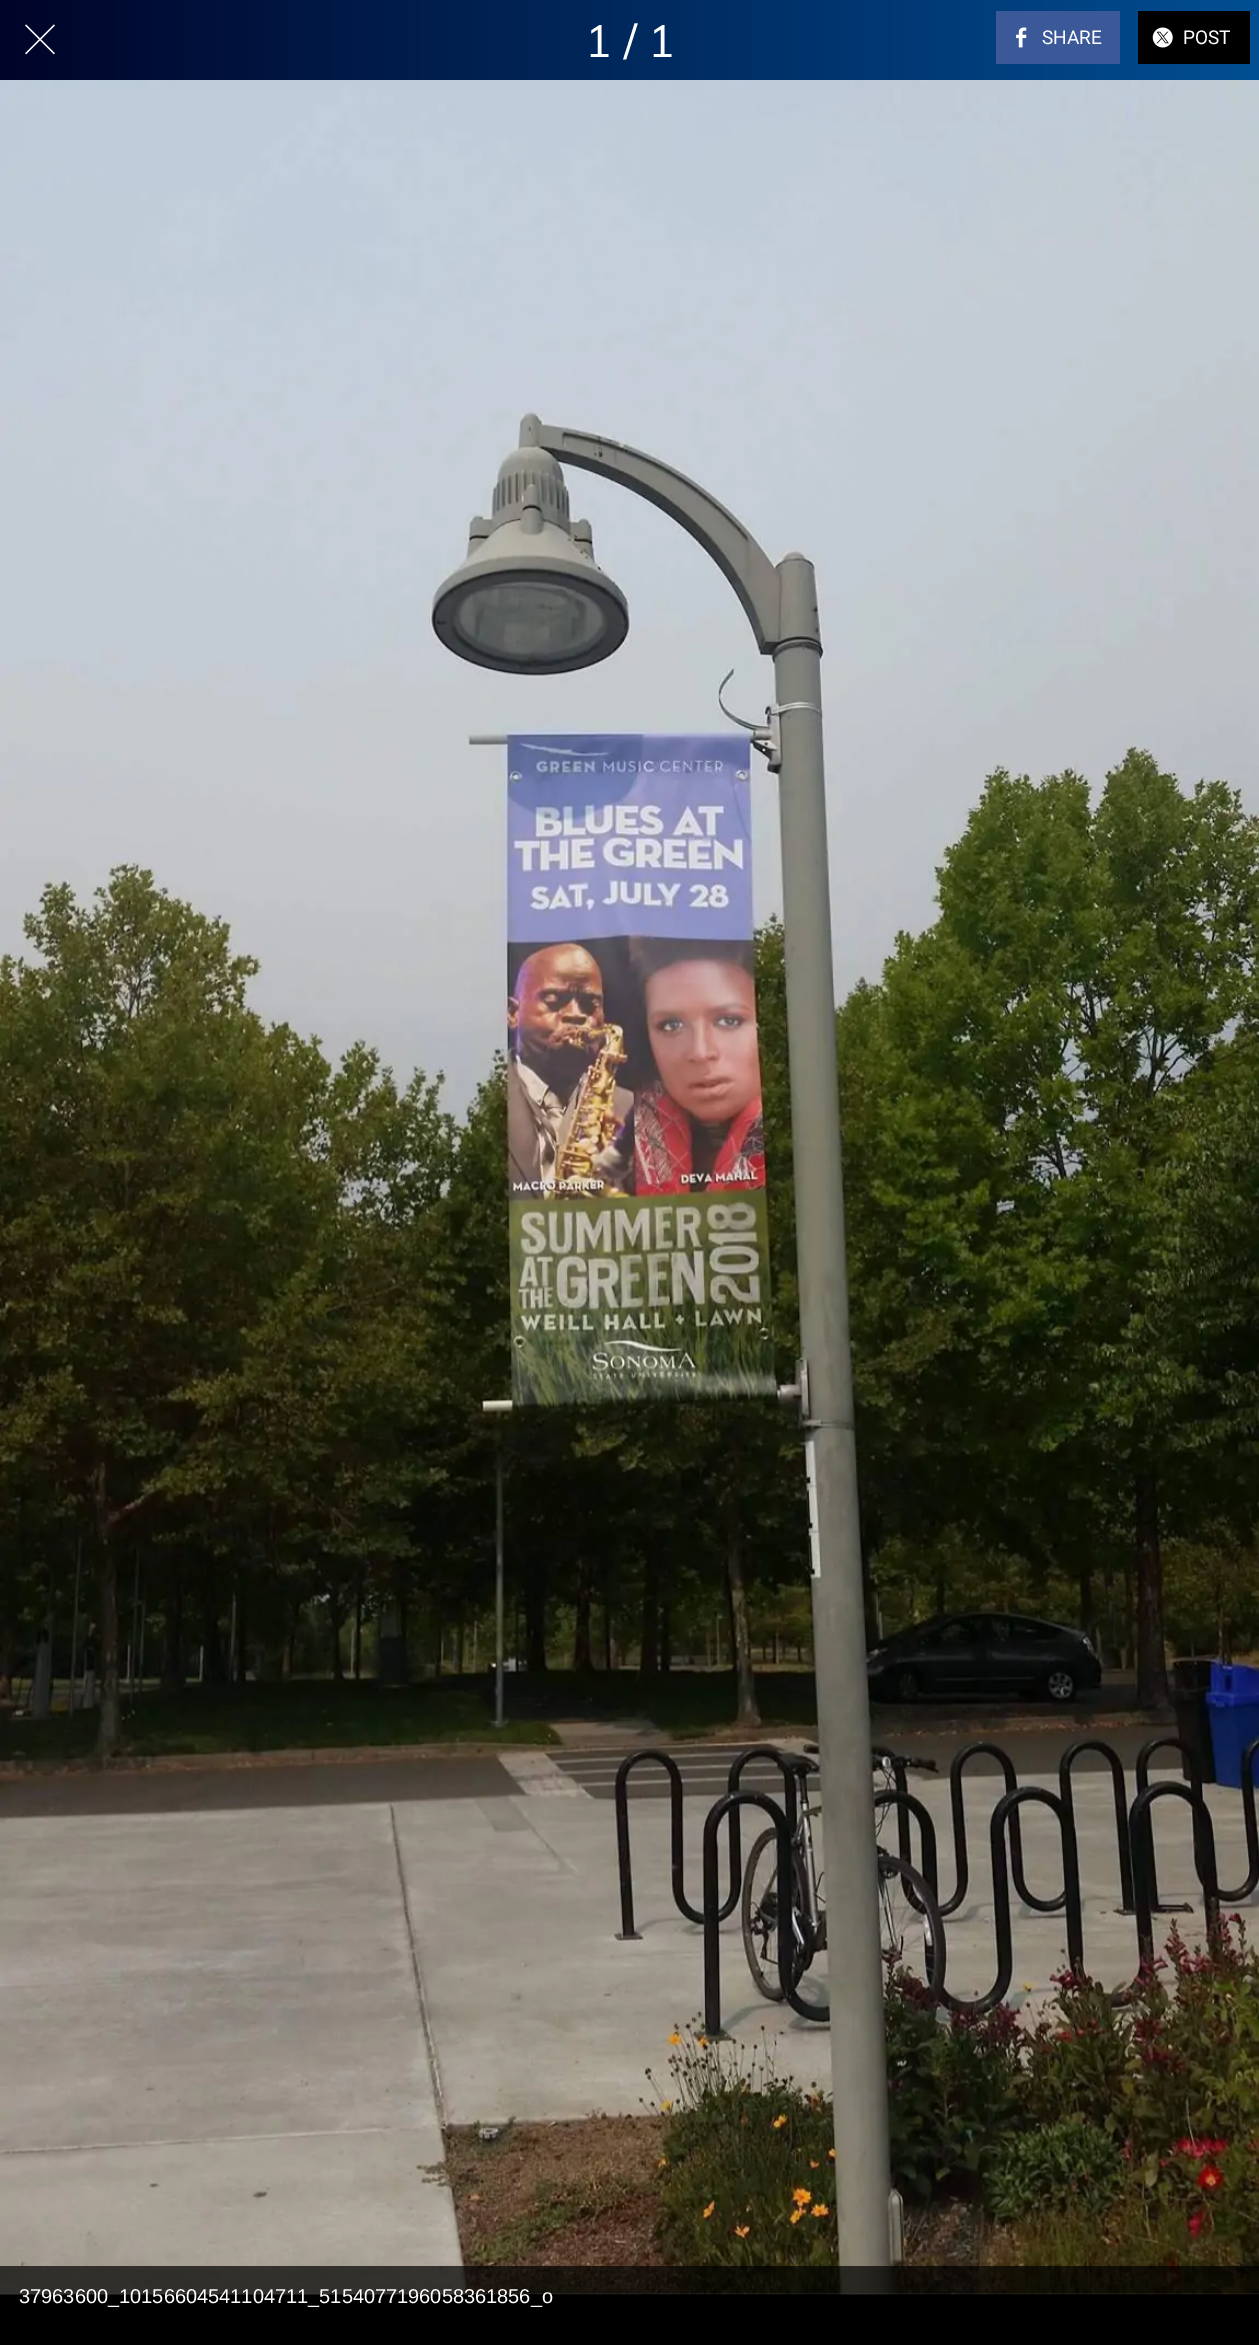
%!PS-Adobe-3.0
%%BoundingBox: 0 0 1259 2345
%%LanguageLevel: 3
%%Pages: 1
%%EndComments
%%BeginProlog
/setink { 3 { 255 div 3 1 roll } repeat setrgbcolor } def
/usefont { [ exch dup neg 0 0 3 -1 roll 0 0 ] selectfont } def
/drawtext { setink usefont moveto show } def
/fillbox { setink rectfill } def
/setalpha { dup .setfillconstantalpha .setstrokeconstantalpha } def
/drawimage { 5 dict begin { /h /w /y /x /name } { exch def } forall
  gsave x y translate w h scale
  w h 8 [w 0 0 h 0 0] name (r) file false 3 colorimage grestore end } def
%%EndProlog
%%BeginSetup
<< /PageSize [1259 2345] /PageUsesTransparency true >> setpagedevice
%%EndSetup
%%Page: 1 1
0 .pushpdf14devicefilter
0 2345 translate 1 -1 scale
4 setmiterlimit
0 0 1259 2345 0 0 0 fillbox
gsave 0 0 moveto 1259 0 lineto 1259 80 lineto 0 80 lineto closepath clip newpath
<< /ShadingType 2 /ColorSpace /DeviceRGB /Coords [0 40 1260 40] /Extend [true true] /Function << /FunctionType 2 /Domain [0 1] /C0 [0 0.016 0.157] /C1 [0 0.306 0.573] /N 1 >> >> shfill grestore
(assets/img1.rgb) 25 24 30 31 drawimage
(1 / 1) 585 57 /Muli-Regular 45 255 255 255 drawtext
996 11 124 53 59 89 153 fillbox
(assets/img2.rgb) 1016 27 11 21 drawimage
(SHARE) 1042 44 /Roboto-Regular 19 255 255 255 drawtext
1138 11 112 53 0 0 0 fillbox
(assets/img3.rgb) 1152 27 21 21 drawimage
(POST) 1183 44 /Roboto-Regular 19 255 255 255 drawtext
(assets/img4.rgb) 0 80 1259 2215 drawimage
0.7 setalpha
0 2266 1259 29 0 0 0 fillbox
1 setalpha
(37963600_10156604541104711_5154077196058361856_o) 19 2303 /LiberationSans-Regular 20 255 255 255 drawtext
.poppdf14devicefilter showpage
%%EOF
